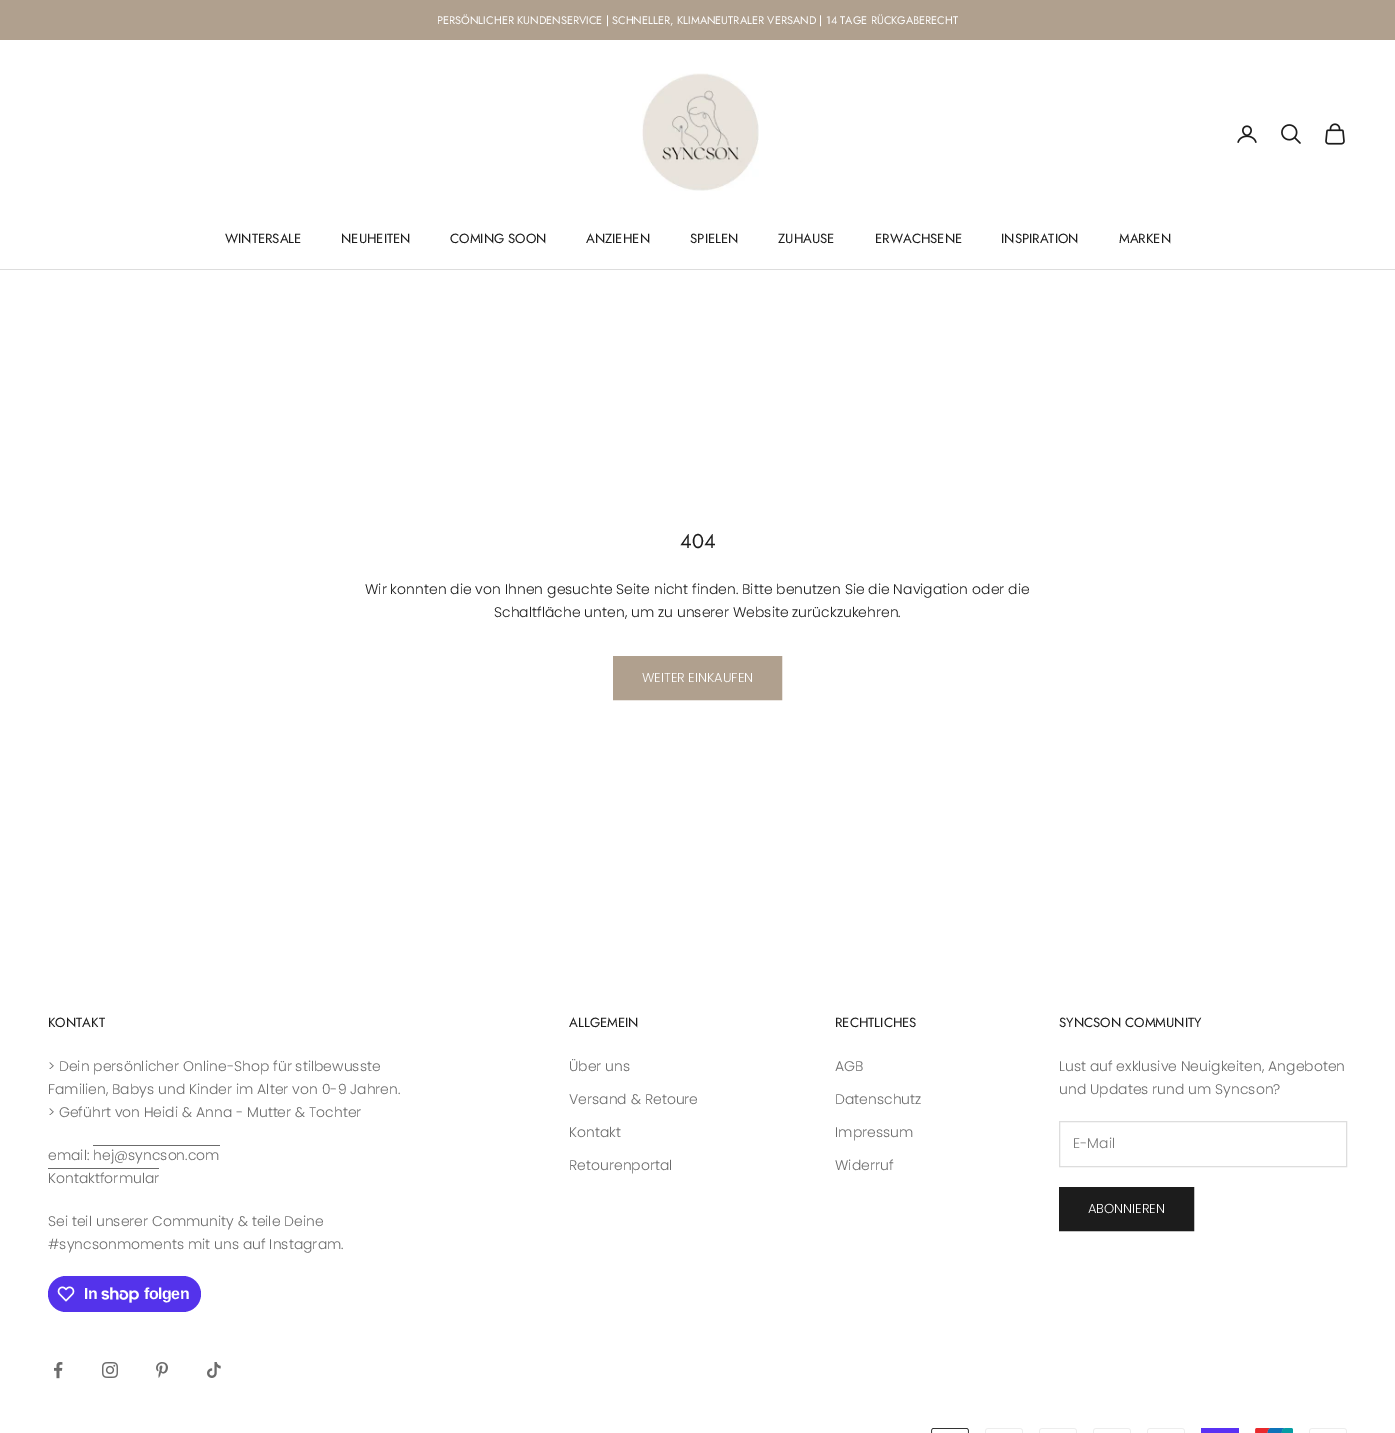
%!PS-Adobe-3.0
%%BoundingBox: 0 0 1395 1433
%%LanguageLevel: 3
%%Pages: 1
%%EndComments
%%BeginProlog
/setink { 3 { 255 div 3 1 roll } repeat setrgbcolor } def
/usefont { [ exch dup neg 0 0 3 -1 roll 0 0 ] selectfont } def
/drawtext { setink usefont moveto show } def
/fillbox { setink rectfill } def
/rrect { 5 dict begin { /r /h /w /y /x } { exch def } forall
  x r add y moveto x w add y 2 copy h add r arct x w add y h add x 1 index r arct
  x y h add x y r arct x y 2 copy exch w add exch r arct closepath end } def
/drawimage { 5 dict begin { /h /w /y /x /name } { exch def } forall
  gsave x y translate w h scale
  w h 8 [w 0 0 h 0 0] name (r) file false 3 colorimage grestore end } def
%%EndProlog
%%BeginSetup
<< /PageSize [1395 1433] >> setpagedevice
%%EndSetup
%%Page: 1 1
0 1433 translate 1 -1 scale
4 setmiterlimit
0 0 1395 1433 255 255 255 fillbox
0 0 1395 40 176 160 142 fillbox
(PERSÖNLICHER KUNDENSERVICE | SCHNELLER, KLIMANEUTRALER VERSAND | 14 TAGE RÜCKGABERECHT) 437 24 /Jost-Regular 11 255 255 255 drawtext
0 269 1395 1 221 221 221 fillbox
(assets/img1.rgb) 642 73 117 118 drawimage
(assets/img2.rgb) 1237 125 20 18 drawimage
(assets/img3.rgb) 1281 124 20 20 drawimage
(assets/img4.rgb) 1325 123 20 22 drawimage
(WINTERSALE) 225 243 /Jost-Regular 13.25 28 28 28 drawtext
(NEUHEITEN) 341 243 /Jost-Regular 13.25 28 28 28 drawtext
(COMING SOON) 450 243 /Jost-Regular 13.25 28 28 28 drawtext
(ANZIEHEN) 586 243 /Jost-Regular 13.25 28 28 28 drawtext
(SPIELEN) 690 243 /Jost-Regular 13.25 28 28 28 drawtext
(ZUHAUSE) 778 243 /Jost-Regular 13.25 28 28 28 drawtext
(ERWACHSENE) 875 243 /Jost-Regular 13.25 28 28 28 drawtext
(INSPIRATION) 1001 243 /Jost-Regular 13.25 28 28 28 drawtext
(MARKEN) 1119 243 /Jost-Regular 13.25 28 28 28 drawtext
(404) 680 548 /Jost-Regular 20 28 28 28 drawtext
(Wir konnten die von Ihnen gesuchte Seite nicht finden. Bitte benutzen Sie die Navigation oder die) 365 594 /Poppins-Light 14 28 28 28 drawtext
(Schaltfläche unten, um zu unserer Website zurückzukehren.) 494 617 /Poppins-Light 14 28 28 28 drawtext
176 160 142 setink
613.5 656.5 moveto 781.5 656.5 lineto 781.5 699.5 lineto 613.5 699.5 lineto closepath gsave fill grestore
stroke
(WEITER EINKAUFEN) 642 682 /Poppins-Light 13 255 255 255 drawtext
(KONTAKT) 48 1027 /Jost-Regular 13.25 28 28 28 drawtext
(> Dein persönlicher Online-Shop für stilbewusste) 48 1071 /Poppins-Light 14 107 107 107 drawtext
(Familien, Babys und Kinder im Alter von 0-9 Jahren.) 48 1094 /Poppins-Light 14 107 107 107 drawtext
(> Geführt von Heidi & Anna - Mutter & Tochter) 48 1117 /Poppins-Light 14 107 107 107 drawtext
93 1145 127 1 107 107 107 fillbox
(email: hej@syncson.com) 48 1160 /Poppins-Light 14 107 107 107 drawtext
(Kontaktformular) 48 1183 /Poppins-Light 14 107 107 107 drawtext
48 1168 111 1 107 107 107 fillbox
(Sei teil unserer Community & teile Deine) 48 1226 /Poppins-Light 14 107 107 107 drawtext
(#syncsonmoments mit uns auf Instagram.) 48 1249 /Poppins-Light 14 107 107 107 drawtext
84 51 235 setink
48 1276 153 36 18 rrect fill
(assets/img5.rgb) 57 1286 18 16 drawimage
/LiberationSans-Bold 16 usefont
255 255 255 setink
84 1299 moveto -0.5 0 (In) ashow
(assets/img6.rgb) 101 1287 38 16 drawimage
144 1299 moveto -0.5 0 (folgen) ashow
(ALLGEMEIN) 569 1027 /Jost-Regular 13.25 28 28 28 drawtext
(Über uns) 569 1071 /Poppins-Light 14 107 107 107 drawtext
(Versand & Retoure) 569 1104 /Poppins-Light 14 107 107 107 drawtext
(Kontakt) 569 1137 /Poppins-Light 14 107 107 107 drawtext
(Retourenportal) 569 1170 /Poppins-Light 14 107 107 107 drawtext
(RECHTLICHES) 835 1027 /Jost-Regular 13.25 28 28 28 drawtext
(AGB) 835 1071 /Poppins-Light 14 107 107 107 drawtext
(Datenschutz) 835 1104 /Poppins-Light 14 107 107 107 drawtext
(Impressum) 835 1137 /Poppins-Light 14 107 107 107 drawtext
(Widerruf) 835 1170 /Poppins-Light 14 107 107 107 drawtext
(SYNCSON COMMUNITY) 1059 1027 /Jost-Regular 13.25 28 28 28 drawtext
(Lust auf exklusive Neuigkeiten, Angeboten) 1059 1071 /Poppins-Light 14 107 107 107 drawtext
(und Updates rund um Syncson?) 1059 1094 /Poppins-Light 14 107 107 107 drawtext
221 221 221 setink
1059.5 1121.5 287 45 rectstroke
(E-Mail) 1073 1148 /Poppins-Light 14 119 119 119 drawtext
28 28 28 setink
1059.5 1187.5 moveto 1193.5 1187.5 lineto 1193.5 1230.5 lineto 1059.5 1230.5 lineto closepath gsave fill grestore
stroke
(ABONNIEREN) 1088 1213 /Poppins-Light 13 255 255 255 drawtext
(assets/img7.rgb) 54 1362 9 17 drawimage
(assets/img8.rgb) 102 1362 16 16 drawimage
(assets/img9.rgb) 156 1362 12 16 drawimage
(assets/img10.rgb) 207 1362 14 16 drawimage
(assets/img11.rgb) 931 1428 38 5 drawimage
(assets/img12.rgb) 985 1428 38 5 drawimage
(assets/img12.rgb) 1039 1428 38 5 drawimage
(assets/img12.rgb) 1093 1428 38 5 drawimage
(assets/img12.rgb) 1147 1428 38 5 drawimage
1201 1428 38 5 90 49 244 fillbox
(assets/img13.rgb) 1255 1428 38 5 drawimage
(assets/img12.rgb) 1309 1428 38 5 drawimage
showpage
%%EOF
